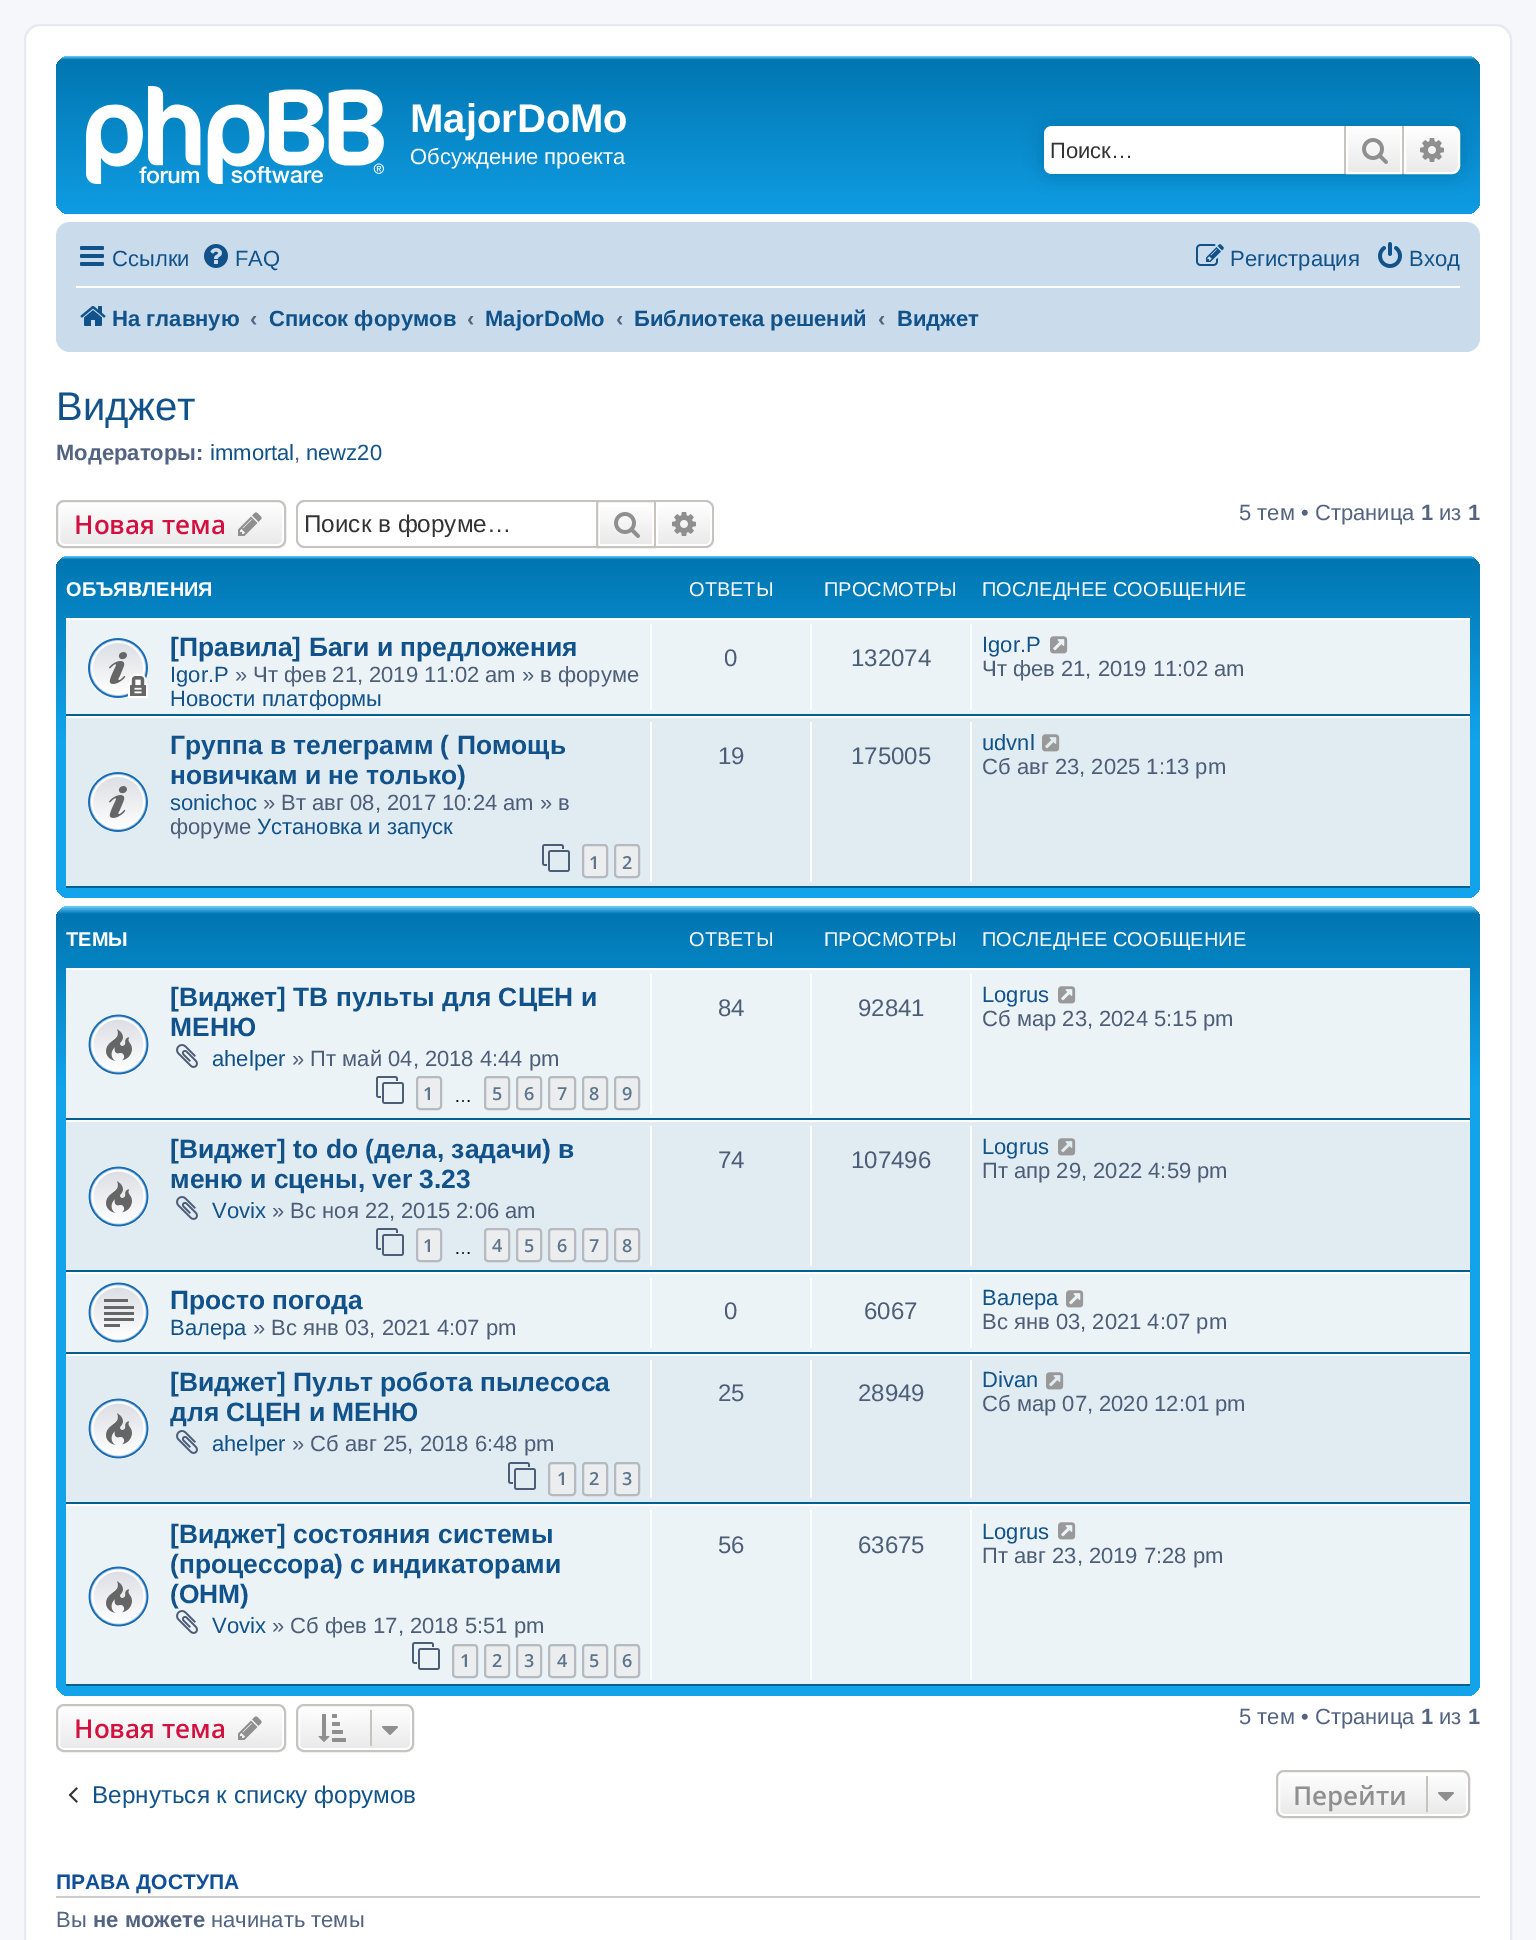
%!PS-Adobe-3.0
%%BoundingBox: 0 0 1536 1940
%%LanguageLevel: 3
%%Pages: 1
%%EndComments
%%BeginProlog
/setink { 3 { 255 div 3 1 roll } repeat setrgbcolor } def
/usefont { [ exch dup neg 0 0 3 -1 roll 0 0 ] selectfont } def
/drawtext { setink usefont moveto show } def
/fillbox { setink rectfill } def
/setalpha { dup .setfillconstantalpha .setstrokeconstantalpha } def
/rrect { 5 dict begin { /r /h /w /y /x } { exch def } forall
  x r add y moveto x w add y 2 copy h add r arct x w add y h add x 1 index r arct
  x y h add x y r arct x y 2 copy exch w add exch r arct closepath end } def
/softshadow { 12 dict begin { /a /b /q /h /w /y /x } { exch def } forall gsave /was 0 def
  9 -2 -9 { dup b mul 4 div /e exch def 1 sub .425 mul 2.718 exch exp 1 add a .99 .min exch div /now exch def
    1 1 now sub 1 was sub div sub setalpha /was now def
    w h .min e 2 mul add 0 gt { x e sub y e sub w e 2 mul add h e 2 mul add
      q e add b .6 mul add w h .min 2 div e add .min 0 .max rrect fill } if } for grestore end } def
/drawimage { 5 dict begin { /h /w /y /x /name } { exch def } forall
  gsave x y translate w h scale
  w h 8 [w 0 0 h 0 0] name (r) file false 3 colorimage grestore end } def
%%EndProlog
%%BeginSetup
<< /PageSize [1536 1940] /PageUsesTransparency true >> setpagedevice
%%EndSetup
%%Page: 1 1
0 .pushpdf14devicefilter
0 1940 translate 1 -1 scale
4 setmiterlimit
0 0 1536 1940 245 247 250 fillbox
255 255 255 setink
25 25 1486 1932 15 rrect gsave fill grestore
230 233 237 setink
2 setlinewidth
stroke
gsave 56 56 1424 158 14 rrect clip newpath
<< /ShadingType 2 /ColorSpace /DeviceRGB /Coords [768 56 768 240] /Extend [true true] /Function << /FunctionType 3 /Domain [0 1] /Functions [<< /FunctionType 2 /Domain [0 1] /C0 [0.416 0.808 1] /C1 [0 0.463 0.694] /N 1 >> << /FunctionType 2 /Domain [0 1] /C0 [0 0.463 0.694] /C1 [0.071 0.639 0.922] /N 1 >>] /Bounds [0.02] /Encode [0 1 0 1] >> >> shfill grestore
(assets/img1.rgb) 86 86 298 98 drawimage
(MajorDoMo) 410 132 /LiberationSans-Bold 40 255 255 255 drawtext
(Обсуждение проекта) 410 164 /LiberationSans-Regular 22 255 255 255 drawtext
0 117 176 setink
1044 126 416 48 8 10 1 softshadow
255 255 255 setink
1052 126 moveto 1344 126 lineto 1344 174 lineto 1052 174 lineto 1047.5 174 1044 170.5 1044 166 curveto 1044 134 lineto 1044 129.5 1047.5 126 1052 126 curveto closepath fill
(Поиск…) 1050 158 /LiberationSans-Regular 22 51 51 51 drawtext
gsave 1348 128 moveto 1400 128 lineto 1400 172 lineto 1348 172 lineto closepath clip newpath
<< /ShadingType 2 /ColorSpace /DeviceRGB /Coords [1374 126 1374 174] /Extend [true true] /Function << /FunctionType 2 /Domain [0 1] /C0 [1 1 1] /C1 [0.914 0.914 0.914] /N 1 >> >> shfill grestore
255 255 255 setink
1347 127 54 46 rectstroke
1402 126 2 48 199 195 191 fillbox
1344 126 2 48 199 195 191 fillbox
(assets/img2.rgb) 1362 138 26 26 drawimage
gsave 1405 127 moveto 1452 127 lineto 1456 127 1459 130 1459 134 curveto 1459 166 lineto 1459 170 1456 173 1452 173 curveto 1405 173 lineto closepath clip newpath
<< /ShadingType 2 /ColorSpace /DeviceRGB /Coords [1432 126 1432 174] /Extend [true true] /Function << /FunctionType 2 /Domain [0 1] /C0 [1 1 1] /C1 [0.914 0.914 0.914] /N 1 >> >> shfill grestore
255 255 255 setink
1405 127 moveto 1452 127 lineto 1456 127 1459 130 1459 134 curveto 1459 166 lineto 1459 170 1456 173 1452 173 curveto 1405 173 lineto closepath stroke
(assets/img3.rgb) 1420 138 24 24 drawimage
202 220 235 setink
56 222 1424 130 14 rrect fill
(assets/img4.rgb) 80 246 24 20 drawimage
(Ссылки) 112 266 /LiberationSans-Regular 22 16 82 137 drawtext
(assets/img5.rgb) 204 244 24 24 drawimage
(FAQ) 235 266 /LiberationSans-Regular 22 16 82 137 drawtext
(assets/img6.rgb) 1196 244 28 22 drawimage
(Регистрация) 1230 266 /LiberationSans-Regular 22 16 82 137 drawtext
(assets/img7.rgb) 1378 242 24 26 drawimage
(Вход) 1409 266 /LiberationSans-Regular 22 16 82 137 drawtext
76 286 1384 2 255 255 255 fillbox
(assets/img8.rgb) 80 306 26 20 drawimage
(На главную) 112 326 /LiberationSans-Bold 22 16 82 137 drawtext
(‹) 250 326 /LiberationSans-Bold 22 83 100 130 drawtext
(Список форумов) 269 326 /LiberationSans-Bold 22 16 82 137 drawtext
(‹) 467 326 /LiberationSans-Bold 22 83 100 130 drawtext
(MajorDoMo) 485 326 /LiberationSans-Bold 22 16 82 137 drawtext
(‹) 616 326 /LiberationSans-Bold 22 83 100 130 drawtext
(Библиотека решений) 634 326 /LiberationSans-Bold 22 16 82 137 drawtext
(‹) 878 326 /LiberationSans-Bold 22 83 100 130 drawtext
(Виджет) 897 326 /LiberationSans-Bold 22 16 82 137 drawtext
(Виджет) 56 420 /LiberationSans-Regular 40 16 82 137 drawtext
(Модераторы:) 56 460 /LiberationSans-Bold 22 83 100 130 drawtext
(immortal) 210 460 /LiberationSans-Regular 22 16 82 137 drawtext
(,) 294 460 /LiberationSans-Regular 22 83 100 130 drawtext
(newz20) 306 460 /LiberationSans-Regular 22 16 82 137 drawtext
gsave
56 500 230 48 8 rrect clip newpath
gsave 56 502 moveto 286 502 lineto 286 546 lineto 56 546 lineto closepath clip newpath
<< /ShadingType 2 /ColorSpace /DeviceRGB /Coords [171 502 171 546] /Extend [true true] /Function << /FunctionType 2 /Domain [0 1] /C0 [1 1 1] /C1 [0.914 0.914 0.914] /N 1 >> >> shfill grestore
grestore
255 255 255 setink
59 503 224 42 5 rrect stroke
199 195 191 setink
57 501 228 46 7 rrect stroke
(Новая тема) 74 534 /OpenSans-SemiBold 26 211 17 65 drawtext
(assets/img9.rgb) 238 512 24 24 drawimage
199 195 191 setink
304 500 moveto 596 500 lineto 596 548 lineto 304 548 lineto 300 548 296 544 296 540 curveto 296 508 lineto 296 504 300 500 304 500 curveto closepath 304 502 moveto 596 502 lineto 596 546 lineto 304 546 lineto 301 546 298 543 298 540 curveto 298 508 lineto 298 505 301 502 304 502 curveto closepath eofill
(Поиск в форуме…) 304 532 /LiberationSans-Regular 24.25 51 51 51 drawtext
gsave 600 507 moveto 652 507 lineto 652 544 lineto 600 544 lineto closepath clip newpath
<< /ShadingType 2 /ColorSpace /DeviceRGB /Coords [626 502 626 546] /Extend [true true] /Function << /FunctionType 2 /Domain [0 1] /C0 [1 1 1] /C1 [0.914 0.914 0.914] /N 1 >> >> shfill grestore
199 195 191 setink
597 501 58 46 rectstroke
(assets/img10.rgb) 614 512 26 26 drawimage
gsave 657 503 moveto 706 503 lineto 709 503 711 505 711 508 curveto 711 540 lineto 711 543 709 545 706 545 curveto 657 545 lineto closepath clip newpath
<< /ShadingType 2 /ColorSpace /DeviceRGB /Coords [684 502 684 546] /Extend [true true] /Function << /FunctionType 2 /Domain [0 1] /C0 [1 1 1] /C1 [0.914 0.914 0.914] /N 1 >> >> shfill grestore
255 255 255 setink
657 503 moveto 706 503 lineto 709 503 711 505 711 508 curveto 711 540 lineto 711 543 709 545 706 545 curveto 657 545 lineto closepath stroke
199 195 191 setink
656 500 moveto 706 500 lineto 710 500 714 504 714 508 curveto 714 540 lineto 714 544 710 548 706 548 curveto 656 548 lineto closepath 656 502 moveto 706 502 lineto 709 502 712 505 712 508 curveto 712 540 lineto 712 543 709 546 706 546 curveto 656 546 lineto closepath eofill
(assets/img11.rgb) 672 512 24 24 drawimage
(5 тем • Страница) 1239 520 /LiberationSans-Regular 22 83 100 130 drawtext
(1) 1421 520 /LiberationSans-Bold 22 83 100 130 drawtext
(из) 1439 520 /LiberationSans-Regular 22 83 100 130 drawtext
(1) 1468 520 /LiberationSans-Bold 22 83 100 130 drawtext
gsave 56 556 1424 342 14 rrect clip newpath
<< /ShadingType 2 /ColorSpace /DeviceRGB /Coords [768 556 768 898] /Extend [true true] /Function << /FunctionType 3 /Domain [0 1] /Functions [<< /FunctionType 2 /Domain [0 1] /C0 [0.416 0.808 1] /C1 [0 0.463 0.694] /N 1 >> << /FunctionType 2 /Domain [0 1] /C0 [0 0.463 0.694] /C1 [0.071 0.639 0.922] /N 1 >> << /FunctionType 2 /Domain [0 1] /C0 [0.071 0.639 0.922] /C1 [0.071 0.639 0.922] /N 1 >>] /Bounds [0.01 0.54] /Encode [0 1 0 1 0 1] >> >> shfill grestore
(ОБЪЯВЛЕНИЯ) 66 596 /LiberationSans-Bold 20 255 255 255 drawtext
(ОТВЕТЫ) 689 596 /LiberationSans-Regular 20 255 255 255 drawtext
(ПРОСМОТРЫ) 824 596 /LiberationSans-Regular 20 255 255 255 drawtext
(ПОСЛЕДНЕЕ СООБЩЕНИЕ) 982 596 /LiberationSans-Regular 20 255 255 255 drawtext
66 620 1404 94 236 243 247 fillbox
66 618 1404 2 255 255 255 fillbox
66 714 1404 2 0 96 143 fillbox
(assets/img12.rgb) 88 638 60 60 drawimage
([Правила] Баги и предложения) 170 656 /LiberationSans-Bold 26.4 16 82 137 drawtext
(Igor.P) 170 682 /LiberationSans-Regular 22 16 82 137 drawtext
(» Чт фев 21, 2019 11:02 am » в форуме) 235 682 /LiberationSans-Regular 22 76 93 119 drawtext
gsave
66 624 1404 86 rectclip
(Новости платформы) 170 706 /LiberationSans-Regular 22 16 82 137 drawtext
grestore
650 624 2 86 255 255 255 fillbox
(0) 724 666 /LiberationSans-Regular 24 76 93 119 drawtext
810 624 2 86 255 255 255 fillbox
(132074) 851 666 /LiberationSans-Regular 24 76 93 119 drawtext
970 624 2 86 255 255 255 fillbox
(Igor.P) 982 652 /LiberationSans-Regular 22 16 82 137 drawtext
(assets/img13.rgb) 1050 636 18 18 drawimage
(Чт фев 21, 2019 11:02 am) 982 676 /LiberationSans-Regular 22 76 93 119 drawtext
66 718 1404 168 225 235 242 fillbox
66 716 1404 2 255 255 255 fillbox
66 886 1404 2 0 96 143 fillbox
(assets/img14.rgb) 88 772 60 60 drawimage
(Группа в телеграмм \( Помощь) 170 754 /LiberationSans-Bold 26.4 16 82 137 drawtext
(новичкам и не только\)) 170 784 /LiberationSans-Bold 26.4 16 82 137 drawtext
(sonichoc) 170 810 /LiberationSans-Regular 22 16 82 137 drawtext
(» Вт авг 08, 2017 10:24 am » в) 263 810 /LiberationSans-Regular 22 76 93 119 drawtext
(форуме) 170 834 /LiberationSans-Regular 22 76 93 119 drawtext
(Установка и запуск) 257 834 /LiberationSans-Regular 22 16 82 137 drawtext
(assets/img15.rgb) 542 844 28 28 drawimage
236 237 238 setink
583 845 24 32 3 rrect gsave fill grestore
180 186 192 setink
stroke
(1) 589 869 /OpenSans-SemiBold 18 92 117 140 drawtext
236 237 238 setink
615 845 24 32 3 rrect gsave fill grestore
180 186 192 setink
stroke
(2) 622 869 /OpenSans-SemiBold 18 92 117 140 drawtext
650 722 2 160 255 255 255 fillbox
(19) 718 764 /LiberationSans-Regular 24 76 93 119 drawtext
810 722 2 160 255 255 255 fillbox
(175005) 851 764 /LiberationSans-Regular 24 76 93 119 drawtext
970 722 2 160 255 255 255 fillbox
(udvnl) 982 750 /LiberationSans-Regular 22 16 82 137 drawtext
(assets/img16.rgb) 1042 734 18 18 drawimage
(Сб авг 23, 2025 1:13 pm) 982 774 /LiberationSans-Regular 22 76 93 119 drawtext
gsave 56 906 1424 790 14 rrect clip newpath
<< /ShadingType 2 /ColorSpace /DeviceRGB /Coords [768 906 768 1696] /Extend [true true] /Function << /FunctionType 3 /Domain [0 1] /Functions [<< /FunctionType 2 /Domain [0 1] /C0 [0.416 0.808 1] /C1 [0 0.463 0.694] /N 1 >> << /FunctionType 2 /Domain [0 1] /C0 [0 0.463 0.694] /C1 [0.071 0.639 0.922] /N 1 >> << /FunctionType 2 /Domain [0 1] /C0 [0.071 0.639 0.922] /C1 [0.071 0.639 0.922] /N 1 >>] /Bounds [0.01 0.23] /Encode [0 1 0 1 0 1] >> >> shfill grestore
(ТЕМЫ) 66 946 /LiberationSans-Bold 20 255 255 255 drawtext
(ОТВЕТЫ) 689 946 /LiberationSans-Regular 20 255 255 255 drawtext
(ПРОСМОТРЫ) 824 946 /LiberationSans-Regular 20 255 255 255 drawtext
(ПОСЛЕДНЕЕ СООБЩЕНИЕ) 982 946 /LiberationSans-Regular 20 255 255 255 drawtext
66 970 1404 148 236 243 247 fillbox
66 968 1404 2 255 255 255 fillbox
66 1118 1404 2 0 96 143 fillbox
(assets/img17.rgb) 88 1014 61 61 drawimage
([Виджет] ТВ пульты для СЦЕН и) 170 1006 /LiberationSans-Bold 26.4 16 82 137 drawtext
(МЕНЮ) 170 1036 /LiberationSans-Bold 26.4 16 82 137 drawtext
(assets/img18.rgb) 176 1044 22 24 drawimage
(ahelper) 212 1066 /LiberationSans-Regular 22 16 82 137 drawtext
(» Пт май 04, 2018 4:44 pm) 292 1066 /LiberationSans-Regular 22 76 93 119 drawtext
(assets/img19.rgb) 376 1076 28 28 drawimage
236 237 238 setink
417 1077 24 32 3 rrect gsave fill grestore
180 186 192 setink
stroke
(1) 423 1100 /OpenSans-SemiBold 18 92 117 140 drawtext
(…) 454 1102 /LiberationSans-Regular 18 0 0 0 drawtext
236 237 238 setink
485 1077 24 32 3 rrect gsave fill grestore
180 186 192 setink
stroke
(5) 492 1100 /OpenSans-SemiBold 18 92 117 140 drawtext
236 237 238 setink
517 1077 24 32 3 rrect gsave fill grestore
180 186 192 setink
stroke
(6) 524 1100 /OpenSans-SemiBold 18 92 117 140 drawtext
236 237 238 setink
549 1077 26 32 3 rrect gsave fill grestore
180 186 192 setink
stroke
(7) 557 1100 /OpenSans-SemiBold 18 92 117 140 drawtext
236 237 238 setink
583 1077 24 32 3 rrect gsave fill grestore
180 186 192 setink
stroke
(8) 589 1100 /OpenSans-SemiBold 18 92 117 140 drawtext
236 237 238 setink
615 1077 24 32 3 rrect gsave fill grestore
180 186 192 setink
stroke
(9) 622 1100 /OpenSans-SemiBold 18 92 117 140 drawtext
650 974 2 140 255 255 255 fillbox
(84) 718 1016 /LiberationSans-Regular 24 76 93 119 drawtext
810 974 2 140 255 255 255 fillbox
(92841) 858 1016 /LiberationSans-Regular 24 76 93 119 drawtext
970 974 2 140 255 255 255 fillbox
(Logrus) 982 1002 /LiberationSans-Regular 22 16 82 137 drawtext
(assets/img13.rgb) 1058 986 18 18 drawimage
(Сб мар 23, 2024 5:15 pm) 982 1026 /LiberationSans-Regular 22 76 93 119 drawtext
66 1122 1404 148 225 235 242 fillbox
66 1120 1404 2 255 255 255 fillbox
66 1270 1404 2 0 96 143 fillbox
(assets/img20.rgb) 88 1166 61 61 drawimage
([Виджет] to do \(дела, задачи\) в) 170 1158 /LiberationSans-Bold 26.4 16 82 137 drawtext
(меню и сцены, ver 3.23) 170 1188 /LiberationSans-Bold 26.4 16 82 137 drawtext
(assets/img21.rgb) 176 1196 22 24 drawimage
(Vovix) 212 1218 /LiberationSans-Regular 22 16 82 137 drawtext
(» Вс ноя 22, 2015 2:06 am) 272 1218 /LiberationSans-Regular 22 76 93 119 drawtext
(assets/img15.rgb) 376 1228 28 28 drawimage
236 237 238 setink
417 1229 24 32 3 rrect gsave fill grestore
180 186 192 setink
stroke
(1) 423 1252 /OpenSans-SemiBold 18 92 117 140 drawtext
(…) 454 1254 /LiberationSans-Regular 18 0 0 0 drawtext
236 237 238 setink
485 1229 24 32 3 rrect gsave fill grestore
180 186 192 setink
stroke
(4) 492 1252 /OpenSans-SemiBold 18 92 117 140 drawtext
236 237 238 setink
517 1229 24 32 3 rrect gsave fill grestore
180 186 192 setink
stroke
(5) 524 1252 /OpenSans-SemiBold 18 92 117 140 drawtext
236 237 238 setink
549 1229 26 32 3 rrect gsave fill grestore
180 186 192 setink
stroke
(6) 557 1252 /OpenSans-SemiBold 18 92 117 140 drawtext
236 237 238 setink
583 1229 24 32 3 rrect gsave fill grestore
180 186 192 setink
stroke
(7) 589 1252 /OpenSans-SemiBold 18 92 117 140 drawtext
236 237 238 setink
615 1229 24 32 3 rrect gsave fill grestore
180 186 192 setink
stroke
(8) 622 1252 /OpenSans-SemiBold 18 92 117 140 drawtext
650 1126 2 140 255 255 255 fillbox
(74) 718 1168 /LiberationSans-Regular 24 76 93 119 drawtext
810 1126 2 140 255 255 255 fillbox
(107496) 851 1168 /LiberationSans-Regular 24 76 93 119 drawtext
970 1126 2 140 255 255 255 fillbox
(Logrus) 982 1154 /LiberationSans-Regular 22 16 82 137 drawtext
(assets/img16.rgb) 1058 1138 18 18 drawimage
(Пт апр 29, 2022 4:59 pm) 982 1178 /LiberationSans-Regular 22 76 93 119 drawtext
66 1274 1404 78 236 243 247 fillbox
66 1272 1404 2 255 255 255 fillbox
66 1352 1404 2 0 96 143 fillbox
(assets/img22.rgb) 88 1282 61 61 drawimage
(Просто погода) 170 1309 /LiberationSans-Bold 26.4 16 82 137 drawtext
(Валера) 170 1335 /LiberationSans-Regular 22 16 82 137 drawtext
(» Вс янв 03, 2021 4:07 pm) 253 1335 /LiberationSans-Regular 22 76 93 119 drawtext
650 1278 2 70 255 255 255 fillbox
(0) 724 1319 /LiberationSans-Regular 24 76 93 119 drawtext
810 1278 2 70 255 255 255 fillbox
(6067) 864 1319 /LiberationSans-Regular 24 76 93 119 drawtext
970 1278 2 70 255 255 255 fillbox
(Валера) 982 1305 /LiberationSans-Regular 22 16 82 137 drawtext
(assets/img13.rgb) 1066 1290 18 18 drawimage
(Вс янв 03, 2021 4:07 pm) 982 1329 /LiberationSans-Regular 22 76 93 119 drawtext
66 1356 1404 146 225 235 242 fillbox
66 1354 1404 2 255 255 255 fillbox
66 1502 1404 2 0 96 143 fillbox
(assets/img20.rgb) 88 1398 61 61 drawimage
([Виджет] Пульт робота пылесоса) 170 1391 /LiberationSans-Bold 26.4 16 82 137 drawtext
(для СЦЕН и МЕНЮ) 170 1421 /LiberationSans-Bold 26.4 16 82 137 drawtext
(assets/img21.rgb) 176 1430 22 24 drawimage
(ahelper) 212 1451 /LiberationSans-Regular 22 16 82 137 drawtext
(» Сб авг 25, 2018 6:48 pm) 292 1451 /LiberationSans-Regular 22 76 93 119 drawtext
(assets/img15.rgb) 508 1462 28 28 drawimage
236 237 238 setink
549 1463 26 32 3 rrect gsave fill grestore
180 186 192 setink
stroke
(1) 557 1485 /OpenSans-SemiBold 18 92 117 140 drawtext
236 237 238 setink
583 1463 24 32 3 rrect gsave fill grestore
180 186 192 setink
stroke
(2) 589 1485 /OpenSans-SemiBold 18 92 117 140 drawtext
236 237 238 setink
615 1463 24 32 3 rrect gsave fill grestore
180 186 192 setink
stroke
(3) 622 1485 /OpenSans-SemiBold 18 92 117 140 drawtext
650 1360 2 138 255 255 255 fillbox
(25) 718 1401 /LiberationSans-Regular 24 76 93 119 drawtext
810 1360 2 138 255 255 255 fillbox
(28949) 858 1401 /LiberationSans-Regular 24 76 93 119 drawtext
970 1360 2 138 255 255 255 fillbox
(Divan) 982 1387 /LiberationSans-Regular 22 16 82 137 drawtext
(assets/img16.rgb) 1046 1372 18 18 drawimage
(Сб мар 07, 2020 12:01 pm) 982 1411 /LiberationSans-Regular 22 76 93 119 drawtext
66 1506 1404 178 236 243 247 fillbox
66 1504 1404 2 255 255 255 fillbox
66 1684 1404 2 0 96 143 fillbox
(assets/img17.rgb) 88 1566 61 61 drawimage
([Виджет] состояния системы) 170 1543 /LiberationSans-Bold 26.4 16 82 137 drawtext
(\(процессора\) с индикаторами) 170 1573 /LiberationSans-Bold 26.4 16 82 137 drawtext
(\(OHM\)) 170 1603 /LiberationSans-Bold 26.4 16 82 137 drawtext
(assets/img18.rgb) 176 1610 22 24 drawimage
(Vovix) 212 1633 /LiberationSans-Regular 22 16 82 137 drawtext
(» Сб фев 17, 2018 5:51 pm) 272 1633 /LiberationSans-Regular 22 76 93 119 drawtext
(assets/img19.rgb) 412 1642 28 28 drawimage
236 237 238 setink
453 1645 24 32 3 rrect gsave fill grestore
180 186 192 setink
stroke
(1) 460 1667 /OpenSans-SemiBold 18 92 117 140 drawtext
236 237 238 setink
485 1645 24 32 3 rrect gsave fill grestore
180 186 192 setink
stroke
(2) 492 1667 /OpenSans-SemiBold 18 92 117 140 drawtext
236 237 238 setink
517 1645 24 32 3 rrect gsave fill grestore
180 186 192 setink
stroke
(3) 524 1667 /OpenSans-SemiBold 18 92 117 140 drawtext
236 237 238 setink
549 1645 26 32 3 rrect gsave fill grestore
180 186 192 setink
stroke
(4) 557 1667 /OpenSans-SemiBold 18 92 117 140 drawtext
236 237 238 setink
583 1645 24 32 3 rrect gsave fill grestore
180 186 192 setink
stroke
(5) 589 1667 /OpenSans-SemiBold 18 92 117 140 drawtext
236 237 238 setink
615 1645 24 32 3 rrect gsave fill grestore
180 186 192 setink
stroke
(6) 622 1667 /OpenSans-SemiBold 18 92 117 140 drawtext
650 1510 2 170 255 255 255 fillbox
(56) 718 1553 /LiberationSans-Regular 24 76 93 119 drawtext
810 1510 2 170 255 255 255 fillbox
(63675) 858 1553 /LiberationSans-Regular 24 76 93 119 drawtext
970 1510 2 170 255 255 255 fillbox
(Logrus) 982 1539 /LiberationSans-Regular 22 16 82 137 drawtext
(assets/img13.rgb) 1058 1522 18 18 drawimage
(Пт авг 23, 2019 7:28 pm) 982 1563 /LiberationSans-Regular 22 76 93 119 drawtext
gsave
56 1704 230 48 8 rrect clip newpath
gsave 56 1706 moveto 286 1706 lineto 286 1750 lineto 56 1750 lineto closepath clip newpath
<< /ShadingType 2 /ColorSpace /DeviceRGB /Coords [171 1706 171 1750] /Extend [true true] /Function << /FunctionType 2 /Domain [0 1] /C0 [1 1 1] /C1 [0.914 0.914 0.914] /N 1 >> >> shfill grestore
grestore
255 255 255 setink
59 1707 224 42 5 rrect stroke
199 195 191 setink
57 1705 228 46 7 rrect stroke
(Новая тема) 74 1738 /OpenSans-SemiBold 26 211 17 65 drawtext
(assets/img9.rgb) 238 1716 24 24 drawimage
gsave
296 1704 118 48 8 rrect clip newpath
gsave 296 1706 moveto 414 1706 lineto 414 1750 lineto 296 1750 lineto closepath clip newpath
<< /ShadingType 2 /ColorSpace /DeviceRGB /Coords [355 1706 355 1750] /Extend [true true] /Function << /FunctionType 2 /Domain [0 1] /C0 [1 1 1] /C1 [0.914 0.914 0.914] /N 1 >> >> shfill grestore
grestore
255 255 255 setink
299 1707 112 42 5 rrect stroke
199 195 191 setink
297 1705 116 46 7 rrect stroke
(assets/img23.rgb) 318 1714 28 28 drawimage
370 1710 2 36 199 195 191 fillbox
(assets/img24.rgb) 382 1726 16 9 drawimage
(5 тем • Страница) 1239 1724 /LiberationSans-Regular 22 83 100 130 drawtext
(1) 1421 1724 /LiberationSans-Bold 22 83 100 130 drawtext
(из) 1439 1724 /LiberationSans-Regular 22 83 100 130 drawtext
(1) 1468 1724 /LiberationSans-Bold 22 83 100 130 drawtext
(assets/img25.rgb) 68 1787 10 16 drawimage
(Вернуться к списку форумов) 92 1803 /LiberationSans-Regular 24.25 16 82 137 drawtext
gsave
1276 1770 194 48 8 rrect clip newpath
gsave 1276 1772 moveto 1470 1772 lineto 1470 1816 lineto 1276 1816 lineto closepath clip newpath
<< /ShadingType 2 /ColorSpace /DeviceRGB /Coords [1373 1772 1373 1816] /Extend [true true] /Function << /FunctionType 2 /Domain [0 1] /C0 [1 1 1] /C1 [0.914 0.914 0.914] /N 1 >> >> shfill grestore
grestore
255 255 255 setink
1279 1773 188 42 5 rrect stroke
199 195 191 setink
1277 1771 192 46 7 rrect stroke
(Перейти) 1293 1805 /OpenSans-SemiBold 26 143 143 143 drawtext
1426 1776 2 36 199 195 191 fillbox
(assets/img24.rgb) 1438 1792 16 9 drawimage
56 1896 1424 2 204 204 204 fillbox
(ПРАВА ДОСТУПА) 56 1889 /LiberationSans-Bold 21 17 80 152 drawtext
(Вы) 56 1927 /LiberationSans-Regular 22 83 100 130 drawtext
(не можете) 93 1927 /LiberationSans-Bold 22 83 100 130 drawtext
(начинать темы) 211 1927 /LiberationSans-Regular 22 83 100 130 drawtext
.poppdf14devicefilter showpage
%%EOF
